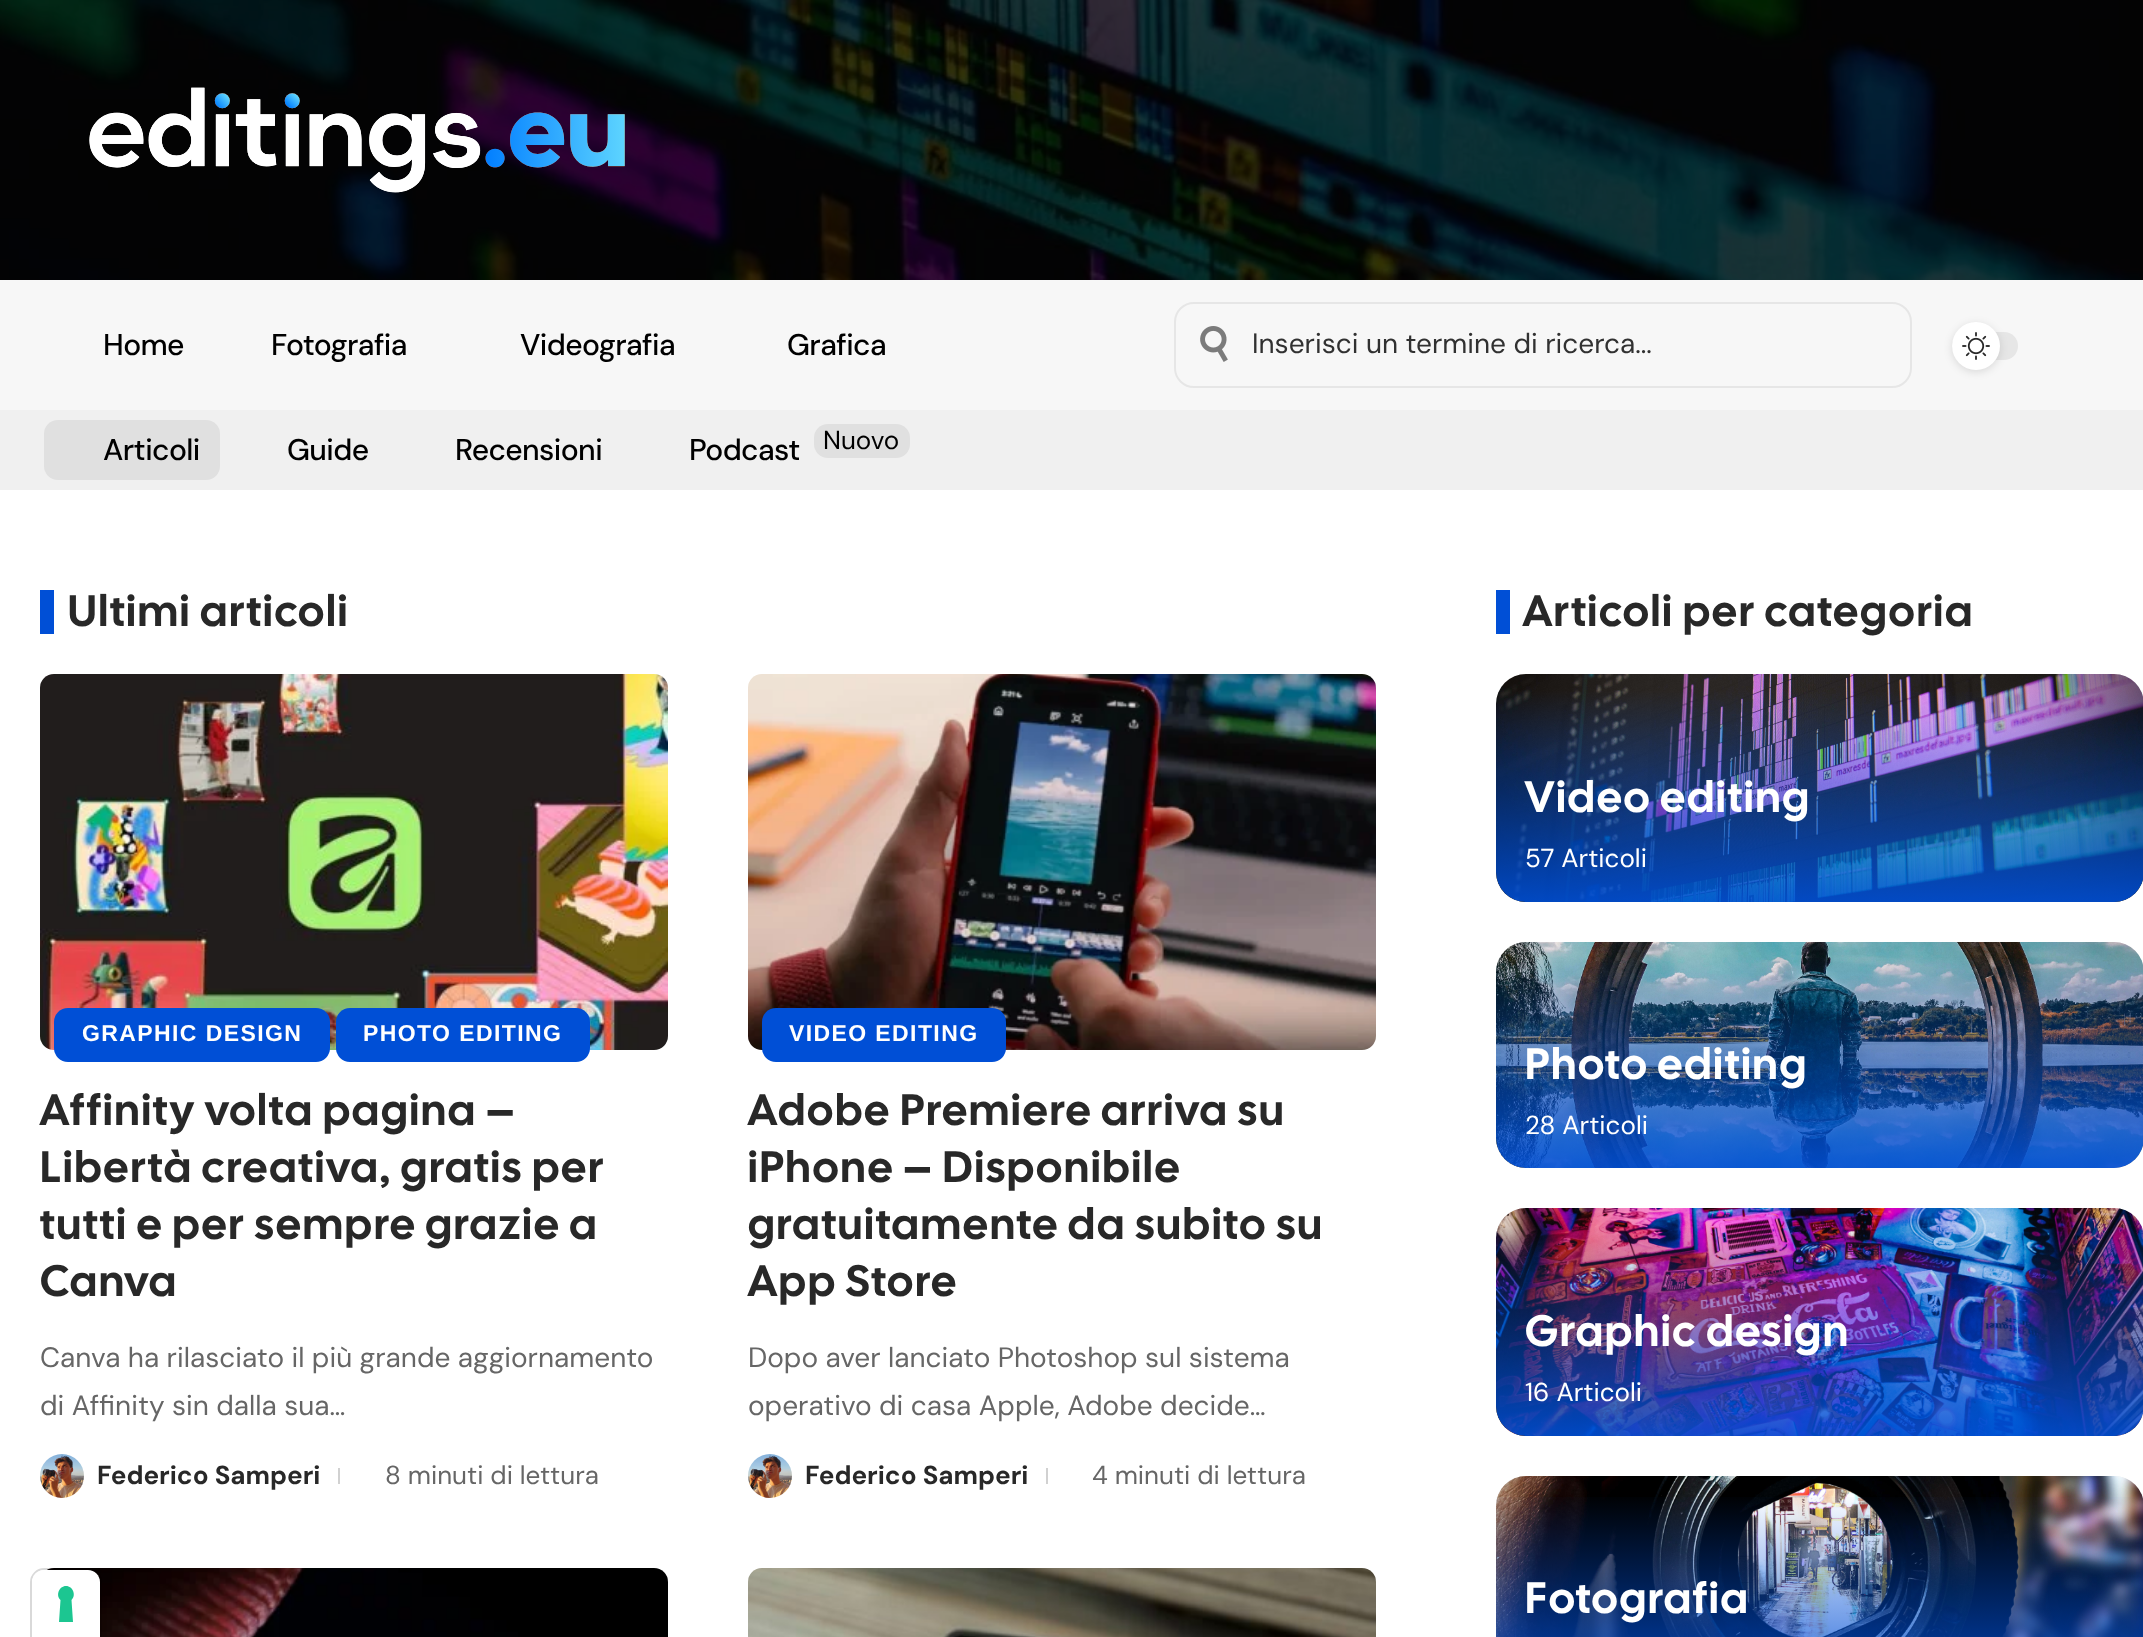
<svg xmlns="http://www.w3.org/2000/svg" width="2143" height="1637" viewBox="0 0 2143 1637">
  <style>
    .t1 { font: 500 30px DM Sans; letter-spacing: -0.6px; fill: #000; }
    .t2 { font: 28px DM Sans; fill: #313131; }
    .t3 { font: 26px DM Sans; fill: #000; }
    .t4 { font: 44px Cal Sans; letter-spacing: 2px; fill: #282828; }
    .t5 { font: bold 23px Liberation Sans; letter-spacing: 1.4px; fill: #fff; }
    .t6 { font: 28px DM Sans; fill: #666; }
    .t7 { font: bold 26px DM Sans; fill: #282828; }
    .t8 { font: 26px DM Sans; fill: #666; }
    .t9 { font: 44px Cal Sans; letter-spacing: 2px; fill: #fff; }
    .t10 { font: 26px DM Sans; fill: #fff; }
  </style>
  <defs>
    <clipPath id="clip1"><rect x="1496" y="674" width="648" height="228" rx="30"/></clipPath>
    <linearGradient id="g1" gradientUnits="userSpaceOnUse" x1="1820" y1="690" x2="1820" y2="902"><stop offset="0" stop-color="#004fd6" stop-opacity="0"/><stop offset="1" stop-color="#004fd6" stop-opacity="0.9"/></linearGradient>
    <clipPath id="clip2"><rect x="1496" y="942" width="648" height="226" rx="30"/></clipPath>
    <linearGradient id="g2" gradientUnits="userSpaceOnUse" x1="1820" y1="956" x2="1820" y2="1168"><stop offset="0" stop-color="#004fd6" stop-opacity="0"/><stop offset="1" stop-color="#004fd6" stop-opacity="0.9"/></linearGradient>
    <clipPath id="clip3"><rect x="1496" y="1208" width="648" height="228" rx="30"/></clipPath>
    <linearGradient id="g3" gradientUnits="userSpaceOnUse" x1="1820" y1="1224" x2="1820" y2="1436"><stop offset="0" stop-color="#004fd6" stop-opacity="0"/><stop offset="1" stop-color="#004fd6" stop-opacity="0.9"/></linearGradient>
    <linearGradient id="g4" gradientUnits="userSpaceOnUse" x1="1820" y1="1492" x2="1820" y2="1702"><stop offset="0" stop-color="#004fd6" stop-opacity="0"/><stop offset="1" stop-color="#004fd6" stop-opacity="0.9"/></linearGradient>
  </defs>
  <rect width="100%" height="100%" fill="#fff"/>
  <image x="0" y="0" width="2143" height="280" href="images/1.png"/>
  <image x="89" y="87" width="536" height="106" href="images/2.png"/>
  <rect x="0" y="280" width="2143" height="130" fill="#f7f7f7"/>
  <text x="103" y="355" class="t1">Home</text>
  <text x="271" y="355" class="t1">Fotografia</text>
  <text x="520" y="355" class="t1">Videografia</text>
  <text x="787" y="355" class="t1">Grafica</text>
  <rect x="1175" y="303" width="736" height="84" rx="19" fill="none" stroke="#e6e6e6" stroke-width="2"/>
  <image x="1200" y="326" width="28" height="36" href="images/3.png"/>
  <text x="1252" y="353" class="t2">Inserisci un termine di ricerca...</text>
  <rect x="1952" y="332" width="66" height="28" rx="14" fill="#e6e6e6"/>
  <rect x="1952" y="324" width="48" height="48" rx="24" fill="#0000001f" filter="blur(4px)"/>
  <circle cx="1976" cy="346" r="24" fill="#fff"/>
  <image x="1962" y="332" width="28" height="28" href="images/4.png"/>
  <rect x="0" y="410" width="2143" height="80" fill="#f0f0f0"/>
  <rect x="44" y="420" width="176" height="60" rx="14" fill="#e0e0e0"/>
  <text x="103" y="460" class="t1">Articoli</text>
  <text x="287" y="460" class="t1">Guide</text>
  <text x="455" y="460" class="t1">Recensioni</text>
  <text x="689" y="460" class="t1">Podcast</text>
  <rect x="814" y="424" width="96" height="34" rx="14" fill="#e0e0e0"/>
  <text x="823" y="449" class="t3">Nuovo</text>
  <rect x="40" y="590" width="14" height="44" fill="#004fd6"/>
  <text x="68" y="626" class="t4">Ultimi articoli</text>
  <image x="40" y="674" width="628" height="376" href="images/5.png"/>
  <rect x="54" y="1008" width="276" height="54" rx="14" fill="#004fd6"/>
  <text x="82" y="1041" class="t5">GRAPHIC DESIGN</text>
  <rect x="336" y="1008" width="254" height="54" rx="14" fill="#004fd6"/>
  <text x="363" y="1041" class="t5">PHOTO EDITING</text>
  <text x="40" y="1125" class="t4">Affinity volta pagina –</text>
  <text x="40" y="1182" class="t4">Libertà creativa, gratis per</text>
  <text x="40" y="1239" class="t4">tutti e per sempre grazie a</text>
  <text x="40" y="1296" class="t4">Canva</text>
  <text x="40" y="1367" class="t6">Canva ha rilasciato il più grande aggiornamento</text>
  <text x="40" y="1415" class="t6">di Affinity sin dalla sua…</text>
  <image x="40" y="1454" width="44" height="44" href="images/6.png"/>
  <text x="97" y="1484" class="t7">Federico Samperi</text>
  <rect x="338" y="1468" width="2" height="16" fill="#d1d1d1"/>
  <text x="385" y="1484" class="t8">8 minuti di lettura</text>
  <image x="748" y="674" width="628" height="376" href="images/7.png"/>
  <rect x="762" y="1008" width="244" height="54" rx="14" fill="#004fd6"/>
  <text x="789" y="1041" class="t5">VIDEO EDITING</text>
  <text x="748" y="1125" class="t4">Adobe Premiere arriva su</text>
  <text x="748" y="1182" class="t4">iPhone – Disponibile</text>
  <text x="748" y="1239" class="t4">gratuitamente da subito su</text>
  <text x="748" y="1296" class="t4">App Store</text>
  <text x="748" y="1367" class="t6">Dopo aver lanciato Photoshop sul sistema</text>
  <text x="748" y="1415" class="t6">operativo di casa Apple, Adobe decide…</text>
  <image x="748" y="1454" width="44" height="44" href="images/8.png"/>
  <text x="805" y="1484" class="t7">Federico Samperi</text>
  <rect x="1046" y="1468" width="2" height="16" fill="#d1d1d1"/>
  <text x="1092" y="1484" class="t8">4 minuti di lettura</text>
  <image x="47" y="1568" width="621" height="69" href="images/9.png"/>
  <image x="748" y="1568" width="628" height="69" href="images/10.png"/>
  <rect x="1496" y="590" width="14" height="44" fill="#004fd6"/>
  <text x="1523" y="626" class="t4">Articoli per categoria</text>
  <rect x="1496" y="674" width="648" height="228" rx="30" fill="#f7f7f7"/>
  <rect x="1496" y="674" width="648" height="228" rx="30" fill="#88888812"/>
  <image x="1496" y="674" width="647" height="228" href="images/11.png"/>
  <g clip-path="url(#clip1)">
    <path d="M1496 690H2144V872C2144 888.5 2130.5 902 2114 902H1526C1509.5 902 1496 888.5 1496 872Z" fill="url(#g1)"/>
  </g>
  <text x="1525" y="812" class="t9">Video editing</text>
  <text x="1525" y="867" class="t10">57 Articoli</text>
  <rect x="1496" y="942" width="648" height="226" rx="30" fill="#f7f7f7"/>
  <rect x="1496" y="942" width="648" height="226" rx="30" fill="#88888812"/>
  <image x="1496" y="942" width="647" height="226" href="images/12.png"/>
  <g clip-path="url(#clip2)">
    <path d="M1496 956H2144V1138C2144 1154.5 2130.5 1168 2114 1168H1526C1509.5 1168 1496 1154.5 1496 1138Z" fill="url(#g2)"/>
  </g>
  <text x="1525" y="1079" class="t9">Photo editing</text>
  <text x="1525" y="1134" class="t10">28 Articoli</text>
  <rect x="1496" y="1208" width="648" height="228" rx="30" fill="#f7f7f7"/>
  <rect x="1496" y="1208" width="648" height="228" rx="30" fill="#88888812"/>
  <image x="1496" y="1208" width="647" height="228" href="images/13.png"/>
  <g clip-path="url(#clip3)">
    <path d="M1496 1224H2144V1406C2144 1422.5 2130.5 1436 2114 1436H1526C1509.5 1436 1496 1422.5 1496 1406Z" fill="url(#g3)"/>
  </g>
  <text x="1525" y="1346" class="t9">Graphic design</text>
  <text x="1525" y="1401" class="t10">16 Articoli</text>
  <rect x="1496" y="1476" width="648" height="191" rx="30" fill="#f7f7f7"/>
  <rect x="1496" y="1476" width="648" height="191" rx="30" fill="#88888812"/>
  <image x="1496" y="1476" width="647" height="161" href="images/14.png"/>
  <rect x="1496" y="1497" width="647" height="140" fill="url(#g4)"/>
  <text x="1525" y="1613" class="t9">Fotografia</text>
  <path d="M44 1569H88C95 1569 101 1575 101 1582V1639H31V1582C31 1575 37 1569 44 1569Z" fill="none" stroke="#00000026" stroke-width="2"/>
  <path d="M44 1570H88C94.5 1570 100 1575.5 100 1582V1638H32V1582C32 1575.5 37.5 1570 44 1570Z" fill="#fff"/>
  <path d="M66 1586C73 1586 76.5 1595.5 71.5 1600L73 1622H59L60.5 1600C55.5 1595.5 59 1586 66 1586Z" fill="#1cc691" fill-rule="evenodd"/>
</svg>
